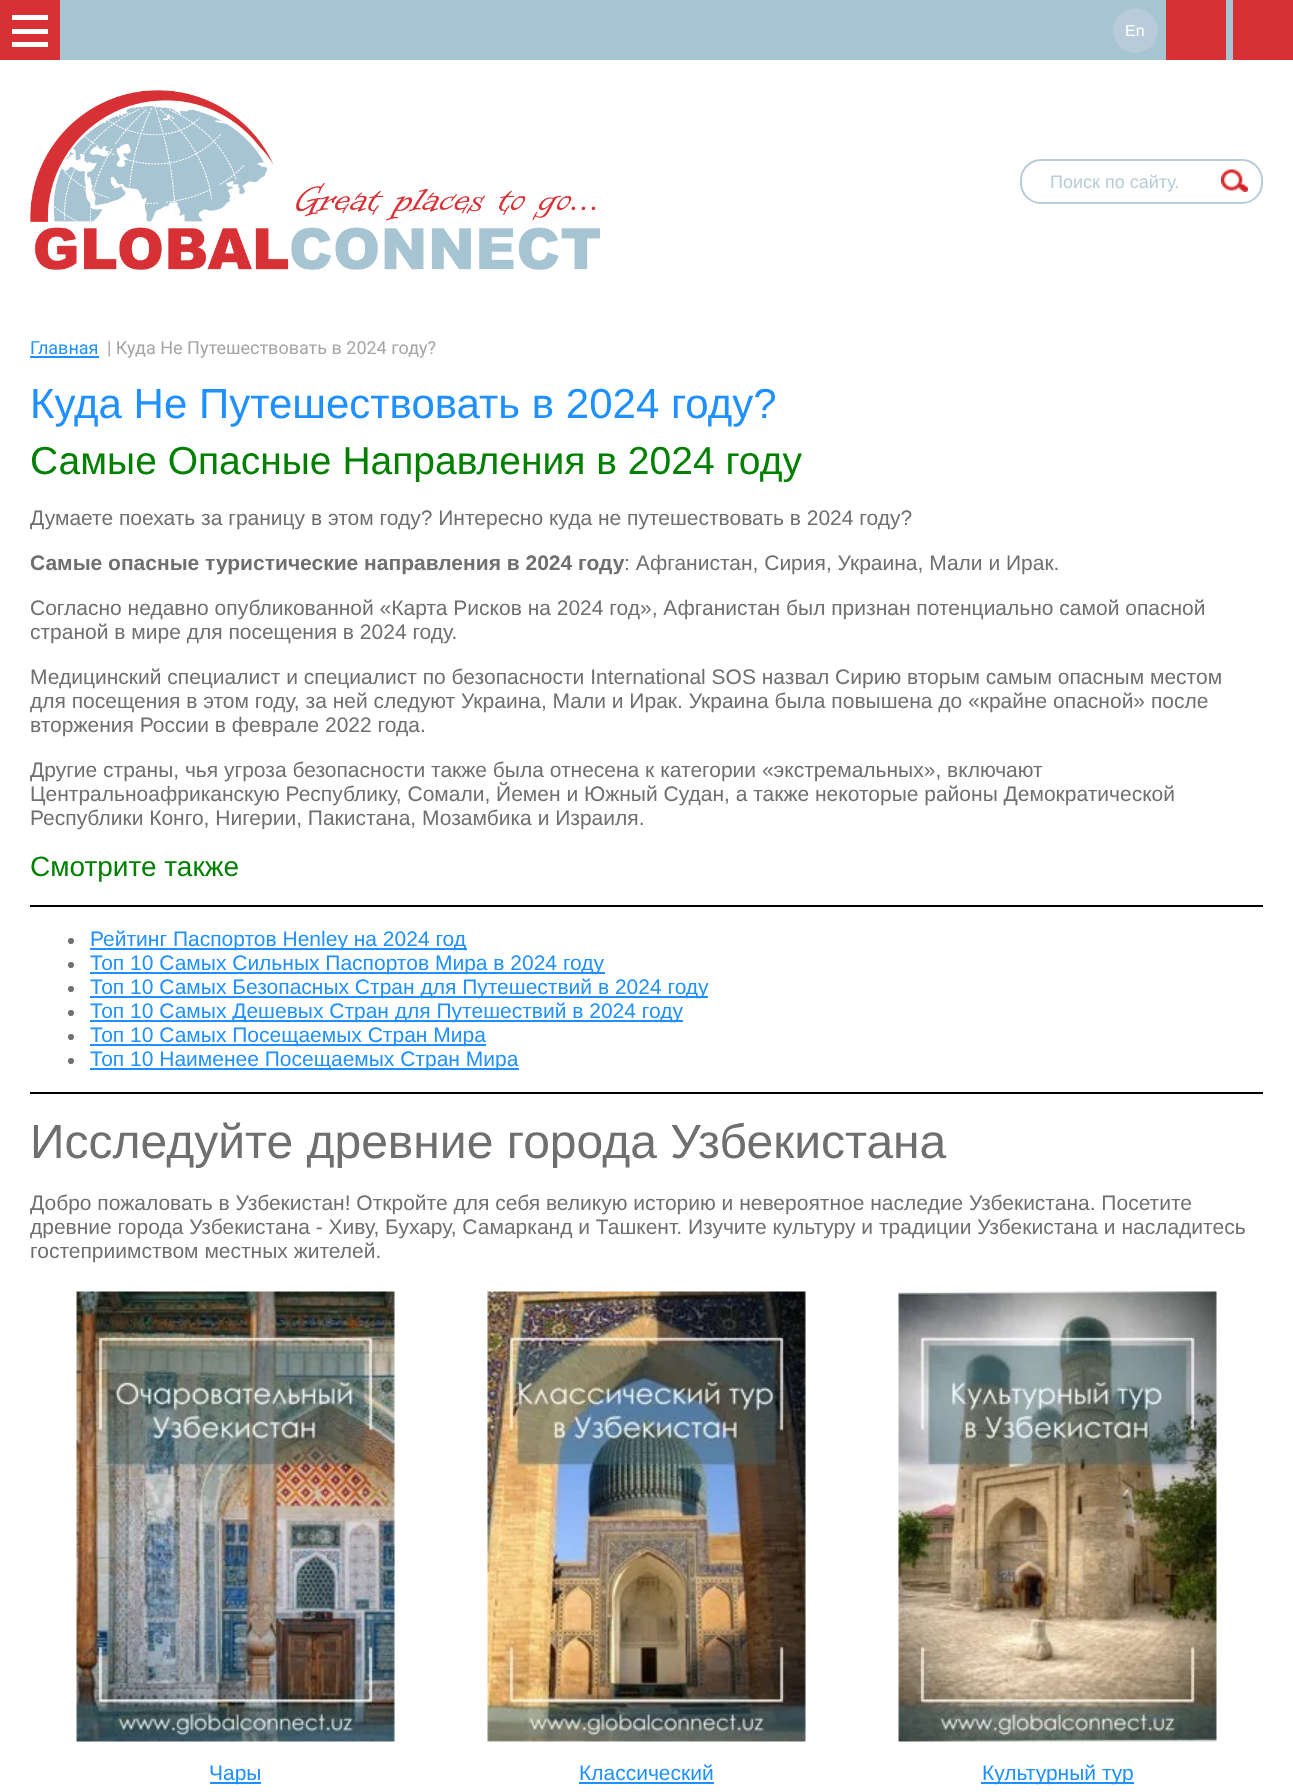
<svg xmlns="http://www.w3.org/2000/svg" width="1293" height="1792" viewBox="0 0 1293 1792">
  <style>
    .t1 { font: 16px Liberation Sans; fill: #fff; }
    .t2 { font: 18px Liberation Sans; fill: #b7cbd8; }
    .t3 { font: 18px Roboto; fill: #1e90ff; }
    .t4 { font: 18px Roboto; fill: #a5a5a5; }
    .t5 { font: 42px Liberation Sans; fill: #1e90ff; }
    .t6 { font: 39px Liberation Sans; fill: #008000; }
    .t7 { font: 21px Liberation Sans; fill: #6f6f6f; }
    .t8 { font: bold 21px Liberation Sans; fill: #6f6f6f; }
    .t9 { font: 28px Liberation Sans; fill: #008000; }
    .t10 { font: 21px Liberation Sans; fill: #1e90ff; }
    .t11 { font: 48px Liberation Sans; fill: #6f6f6f; }
  </style>
  <rect width="100%" height="100%" fill="#fff"/>
  <rect x="0" y="0" width="60" height="60" fill="#d83135"/>
  <rect x="12" y="15" width="36" height="5" fill="#fff"/>
  <rect x="12" y="42" width="36" height="5" fill="#fff"/>
  <rect x="12" y="29" width="36" height="5" fill="#fff"/>
  <rect x="60" y="0" width="1173" height="60" fill="#a7c4d2"/>
  <circle cx="1135.5" cy="30.5" r="22.5" fill="#b7cbd8"/>
  <text x="1125" y="36" class="t1">En</text>
  <image x="30" y="90" width="570" height="180" href="images/1.png"/>
  <rect x="1021" y="160" width="241" height="43" rx="20" fill="none" stroke="#b7cbd8" stroke-width="2"/>
  <text x="1050" y="188" class="t2">Поиск по сайту.</text>
  <image x="1221" y="169" width="27" height="23" href="images/2.png"/>
  <rect x="1166" y="0" width="60" height="60" fill="#d83135"/>
  <rect x="1233" y="0" width="60" height="60" fill="#d83135"/>
  <text x="30" y="354" class="t3">Главная</text>
  <rect x="30" y="356" width="69" height="2" fill="#1e90ff"/>
  <text x="107" y="354" class="t4">| Куда Не Путешествовать в 2024 году?</text>
  <text x="30" y="418" class="t5">Куда Не Путешествовать в 2024 году?</text>
  <text x="30" y="474" class="t6">Самые Опасные Направления в 2024 году</text>
  <text x="30" y="525" class="t7">Думаете поехать за границу в этом году? Интересно куда не путешествовать в 2024 году?</text>
  <text x="30" y="570" class="t8">Самые опасные туристические направления в 2024 году</text>
  <text x="624" y="570" class="t7">: Афганистан, Сирия, Украина, Мали и Ирак.</text>
  <text x="30" y="615" class="t7">Согласно недавно опубликованной «Карта Рисков на 2024 год», Афганистан был признан потенциально самой опасной</text>
  <text x="30" y="639" class="t7">страной в мире для посещения в 2024 году.</text>
  <text x="30" y="684" class="t7">Медицинский специалист и специалист по безопасности International SOS назвал Сирию вторым самым опасным местом</text>
  <text x="30" y="708" class="t7">для посещения в этом году, за ней следуют Украина, Мали и Ирак. Украина была повышена до «крайне опасной» после</text>
  <text x="30" y="732" class="t7">вторжения России в феврале 2022 года.</text>
  <text x="30" y="777" class="t7">Другие страны, чья угроза безопасности также была отнесена к категории «экстремальных», включают</text>
  <text x="30" y="801" class="t7">Центральноафриканскую Республику, Сомали, Йемен и Южный Судан, а также некоторые районы Демократической</text>
  <text x="30" y="825" class="t7">Республики Конго, Нигерии, Пакистана, Мозамбика и Израиля.</text>
  <text x="30" y="876" class="t9">Смотрите также</text>
  <rect x="30" y="905" width="1233" height="2" fill="#000"/>
  <circle cx="71" cy="941" r="3" fill="#6f6f6f"/>
  <rect x="90" y="948" width="377" height="2" fill="#1e90ff"/>
  <text x="90" y="946" class="t10">Рейтинг Паспортов Henley на 2024 год</text>
  <circle cx="71" cy="965" r="3" fill="#6f6f6f"/>
  <rect x="90" y="972" width="515" height="2" fill="#1e90ff"/>
  <text x="90" y="970" class="t10">Топ 10 Самых Сильных Паспортов Мира в 2024 году</text>
  <circle cx="71" cy="989" r="3" fill="#6f6f6f"/>
  <rect x="90" y="996" width="618" height="2" fill="#1e90ff"/>
  <text x="90" y="994" class="t10">Топ 10 Самых Безопасных Стран для Путешествий в 2024 году</text>
  <circle cx="71" cy="1013" r="3" fill="#6f6f6f"/>
  <rect x="90" y="1020" width="593" height="2" fill="#1e90ff"/>
  <text x="90" y="1018" class="t10">Топ 10 Самых Дешевых Стран для Путешествий в 2024 году</text>
  <circle cx="71" cy="1037" r="3" fill="#6f6f6f"/>
  <rect x="90" y="1044" width="396" height="2" fill="#1e90ff"/>
  <text x="90" y="1042" class="t10">Топ 10 Самых Посещаемых Стран Мира</text>
  <circle cx="71" cy="1061" r="3" fill="#6f6f6f"/>
  <rect x="90" y="1068" width="429" height="2" fill="#1e90ff"/>
  <text x="90" y="1066" class="t10">Топ 10 Наименее Посещаемых Стран Мира</text>
  <rect x="30" y="1092" width="1233" height="2" fill="#000"/>
  <text x="30" y="1158" class="t11">Исследуйте древние города Узбекистана</text>
  <text x="30" y="1210" class="t7">Добро пожаловать в Узбекистан! Откройте для себя великую историю и невероятное наследие Узбекистана. Посетите</text>
  <text x="30" y="1234" class="t7">древние города Узбекистана - Хиву, Бухару, Самарканд и Ташкент. Изучите культуру и традиции Узбекистана и насладитесь</text>
  <text x="30" y="1258" class="t7">гостеприимством местных жителей.</text>
  <image x="76" y="1291" width="319" height="451" href="images/3.png"/>
  <image x="487" y="1291" width="319" height="451" href="images/4.png"/>
  <image x="898" y="1291" width="319" height="451" href="images/5.png"/>
  <rect x="210" y="1782" width="51" height="2" fill="#1e90ff"/>
  <text x="209" y="1780" class="t10">Чары</text>
  <text x="579" y="1780" class="t10">Классический</text>
  <rect x="579" y="1782" width="135" height="2" fill="#1e90ff"/>
  <rect x="981" y="1782" width="153" height="2" fill="#1e90ff"/>
  <text x="982" y="1780" class="t10">Культурный тур</text>
</svg>
